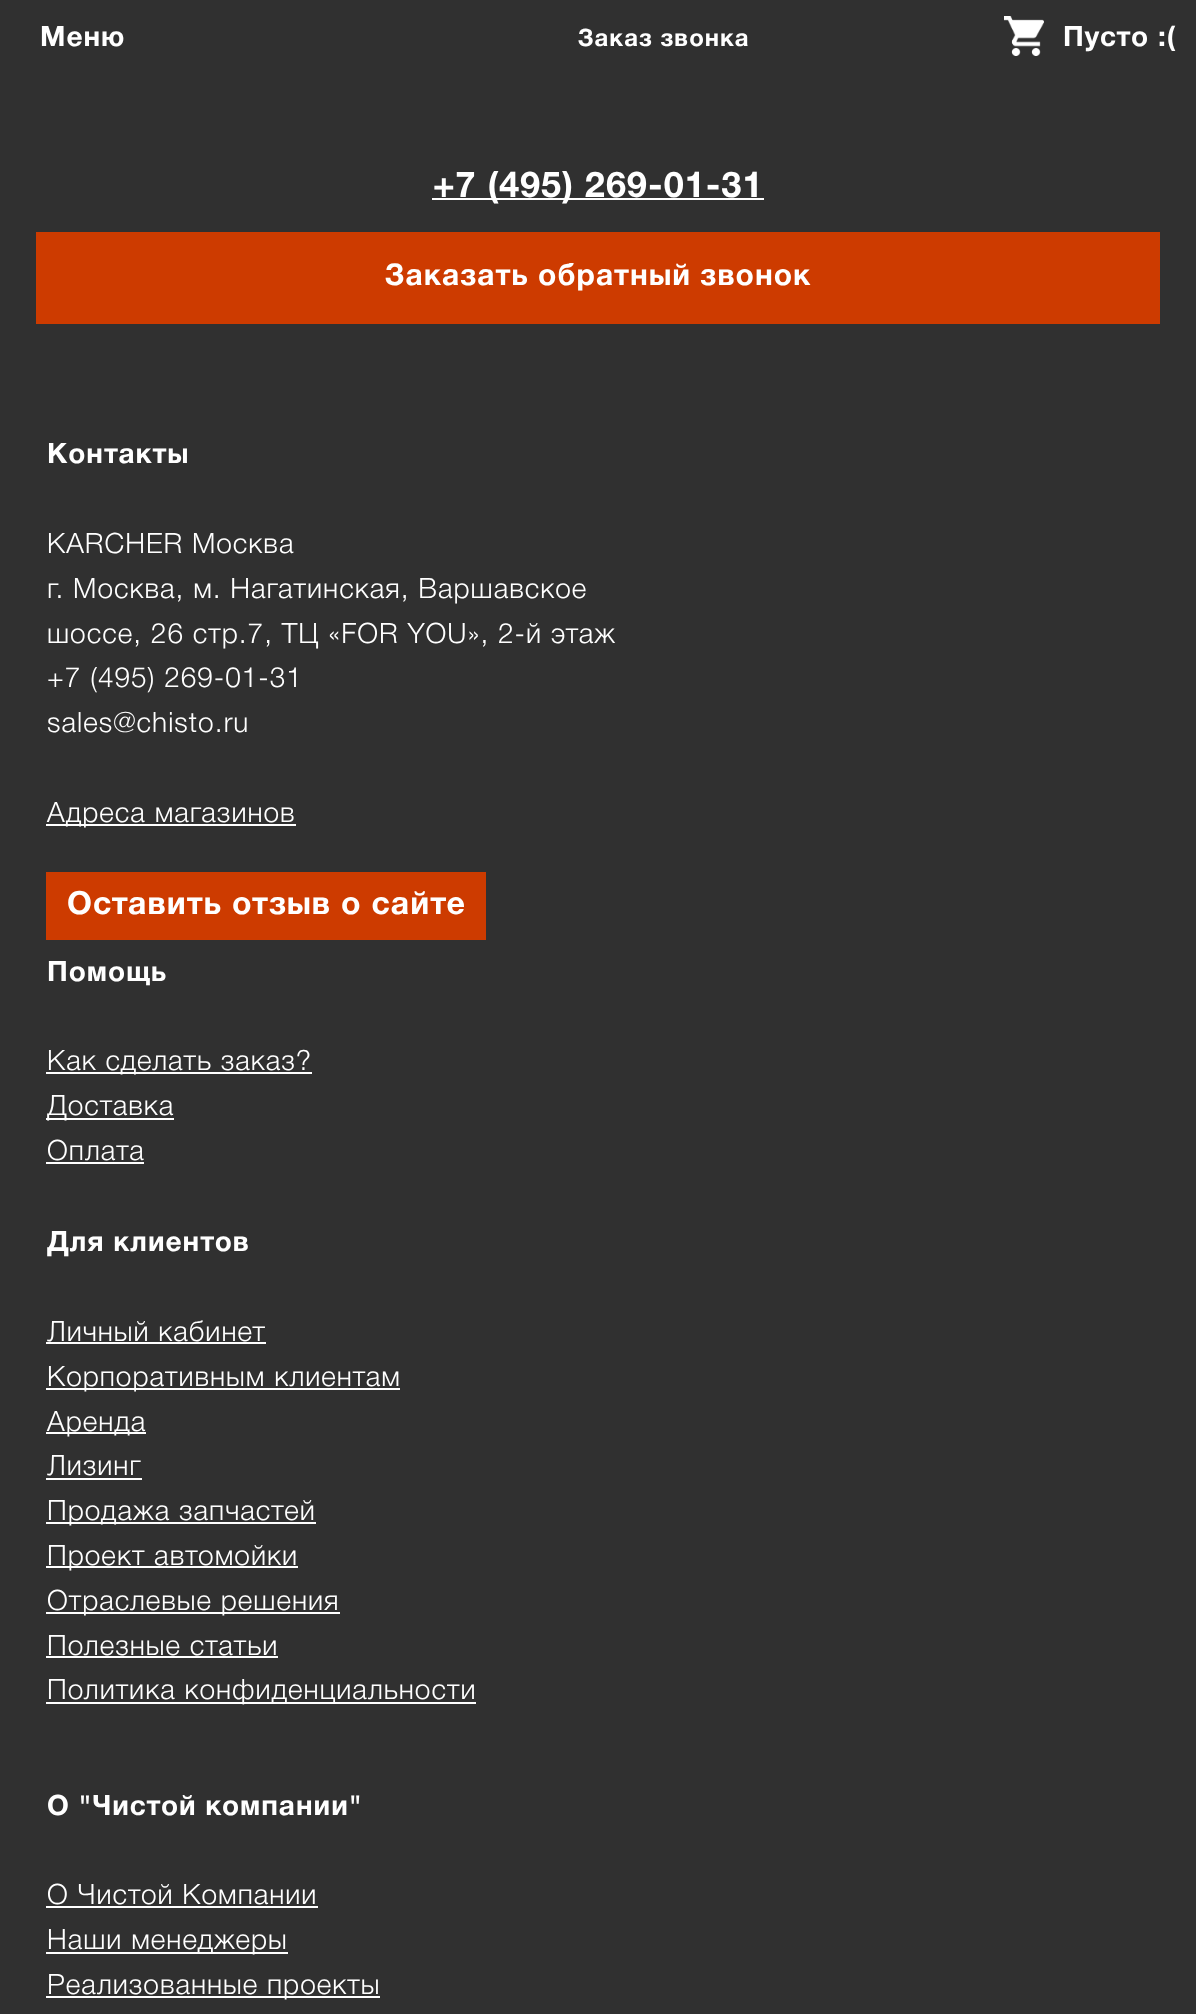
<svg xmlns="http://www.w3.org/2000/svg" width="1196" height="2014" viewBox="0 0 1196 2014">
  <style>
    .t1 { font: bold 28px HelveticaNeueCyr; letter-spacing: 1px; fill: #fff; }
    .t2 { font: bold 24px HelveticaNeueCyr; letter-spacing: 1px; fill: #fff; }
    .t3 { font: bold 36px HelveticaNeueCyr; letter-spacing: 1px; fill: #fff; }
    .t4 { font: bold 30px HelveticaNeueCyr; letter-spacing: 1px; fill: #fff; }
    .t5 { font: 300 28px HelveticaNeueCyr; letter-spacing: 1px; fill: #fff; }
    .t6 { font: bold 32px HelveticaNeueCyr; letter-spacing: 1px; fill: #fff; }
  </style>
  <rect width="100%" height="100%" fill="#303030"/>
  <text x="40" y="46" class="t1">Меню</text>
  <text x="578" y="46" class="t2">Заказ звонка</text>
  <image x="1004" y="16" width="40" height="40" href="images/1.png"/>
  <text x="1063" y="46" class="t1">Пусто :(</text>
  <rect x="432" y="198" width="332" height="2" fill="#fff"/>
  <text x="433" y="197" class="t3">+7 (495) 269-01-31</text>
  <rect x="36" y="232" width="1124" height="92" fill="#cd3b00"/>
  <text x="385" y="285" class="t4">Заказать обратный звонок</text>
  <text x="47" y="463" class="t1">Контакты</text>
  <text x="47" y="553" class="t5">KARCHER Москва</text>
  <text x="47" y="598" class="t5">г. Москва, м. Нагатинская, Варшавское</text>
  <text x="47" y="643" class="t5">шоссе, 26 стр.7, ТЦ «FOR YOU», 2-й этаж</text>
  <text x="47" y="687" class="t5">+7 (495) 269-01-31</text>
  <text x="47" y="732" class="t5">sales@chisto.ru</text>
  <rect x="46" y="824" width="250" height="2" fill="#fff"/>
  <text x="47" y="822" class="t5">Адреса магазинов</text>
  <rect x="46" y="872" width="440" height="68" fill="#cd3b00"/>
  <text x="67" y="914" class="t6">Оставить отзыв о сайте</text>
  <text x="47" y="981" class="t1">Помощь</text>
  <rect x="46" y="1072" width="266" height="2" fill="#fff"/>
  <text x="47" y="1070" class="t5">Как сделать заказ?</text>
  <rect x="46" y="1118" width="128" height="2" fill="#fff"/>
  <text x="47" y="1115" class="t5">Доставка</text>
  <text x="47" y="1160" class="t5">Оплата</text>
  <rect x="46" y="1162" width="98" height="2" fill="#fff"/>
  <text x="47" y="1251" class="t1">Для клиентов</text>
  <text x="47" y="1341" class="t5">Личный кабинет</text>
  <rect x="46" y="1342" width="220" height="2" fill="#fff"/>
  <rect x="46" y="1388" width="354" height="2" fill="#fff"/>
  <text x="47" y="1386" class="t5">Корпоративным клиентам</text>
  <rect x="46" y="1432" width="100" height="2" fill="#fff"/>
  <text x="47" y="1431" class="t5">Аренда</text>
  <text x="47" y="1475" class="t5">Лизинг</text>
  <rect x="46" y="1478" width="96" height="2" fill="#fff"/>
  <rect x="46" y="1522" width="270" height="2" fill="#fff"/>
  <text x="47" y="1520" class="t5">Продажа запчастей</text>
  <rect x="46" y="1566" width="252" height="2" fill="#fff"/>
  <text x="47" y="1565" class="t5">Проект автомойки</text>
  <rect x="46" y="1612" width="294" height="2" fill="#fff"/>
  <text x="47" y="1610" class="t5">Отраслевые решения</text>
  <text x="47" y="1655" class="t5">Полезные статьи</text>
  <rect x="46" y="1656" width="232" height="2" fill="#fff"/>
  <rect x="46" y="1702" width="430" height="2" fill="#fff"/>
  <text x="47" y="1699" class="t5">Политика конфиденциальности</text>
  <text x="47" y="1815" class="t1">О "Чистой компании"</text>
  <text x="47" y="1904" class="t5">О Чистой Компании</text>
  <rect x="46" y="1906" width="272" height="2" fill="#fff"/>
  <rect x="46" y="1952" width="242" height="2" fill="#fff"/>
  <text x="47" y="1949" class="t5">Наши менеджеры</text>
  <rect x="46" y="1996" width="334" height="2" fill="#fff"/>
  <text x="47" y="1994" class="t5">Реализованные проекты</text>
</svg>
